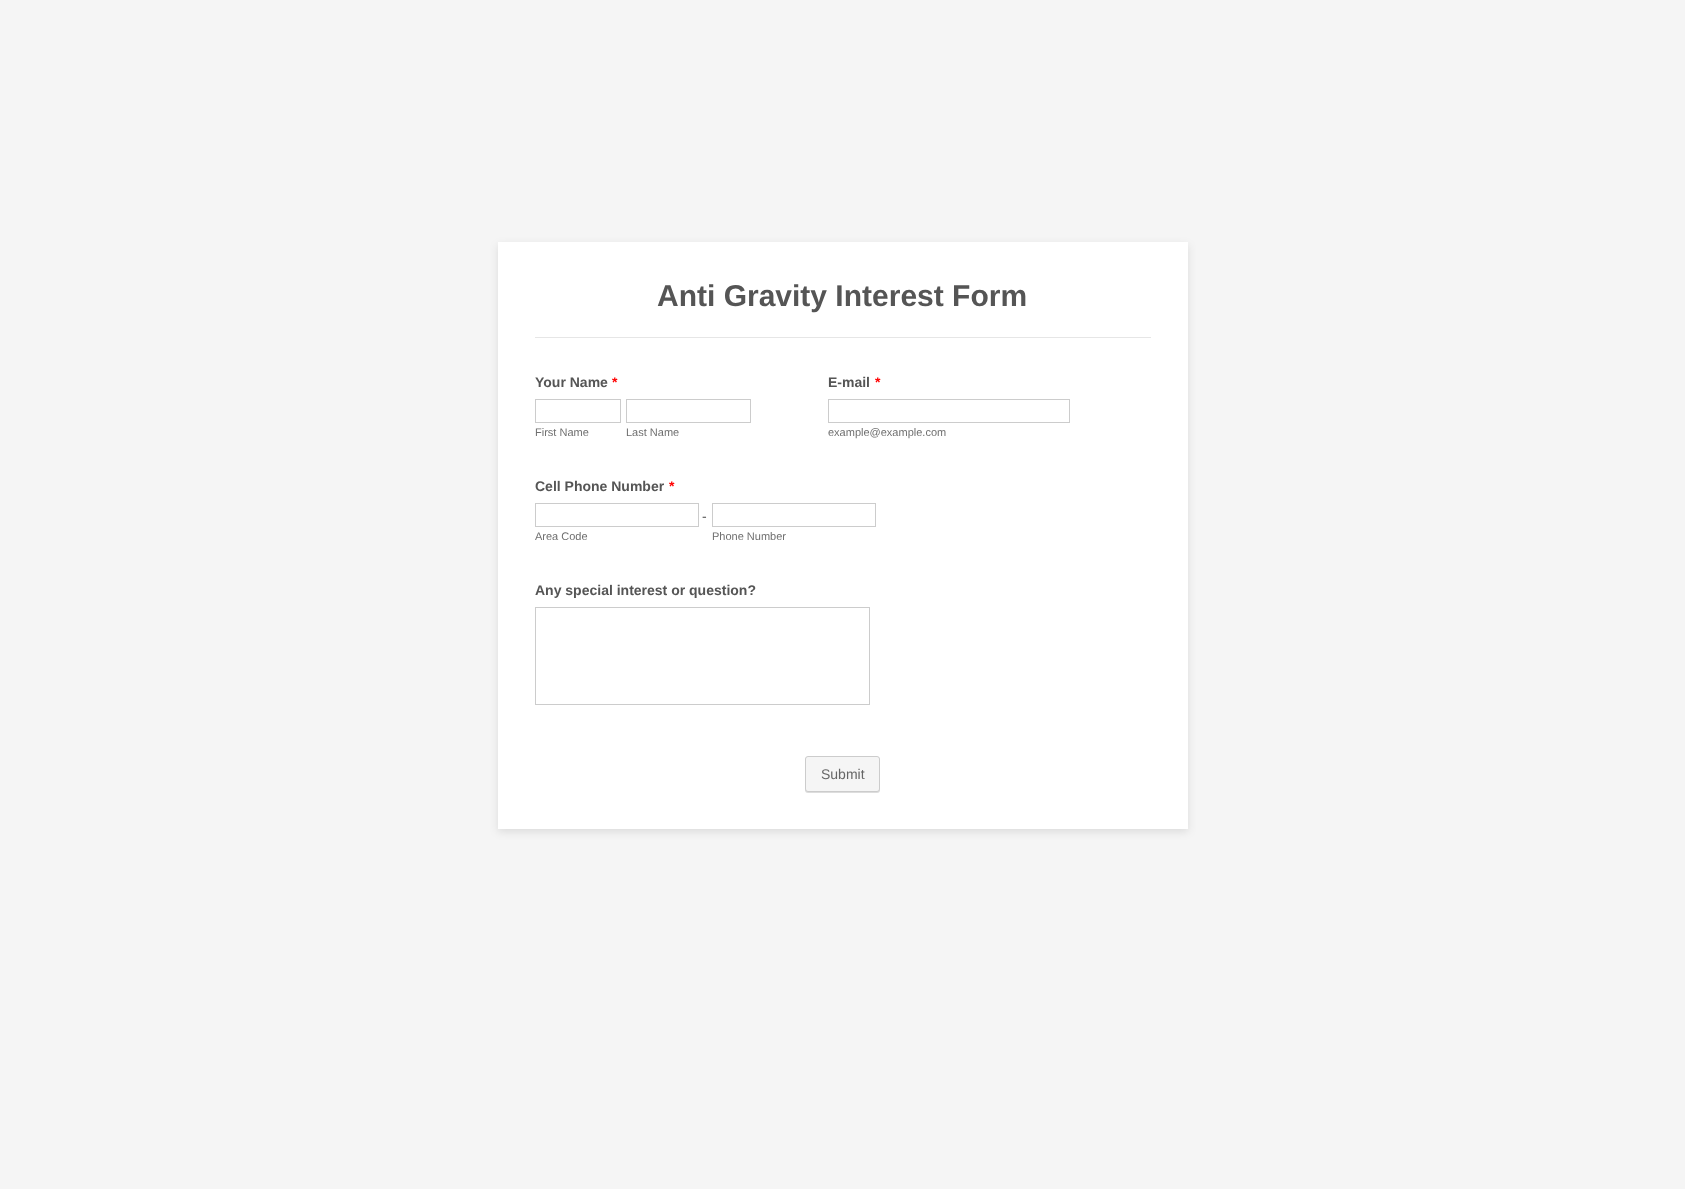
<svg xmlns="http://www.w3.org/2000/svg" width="1685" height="1189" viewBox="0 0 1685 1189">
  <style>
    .t1 { font: bold 30px Liberation Sans; fill: #555; }
    .t2 { font: bold 14px Liberation Sans; fill: #555; }
    .t3 { font: bold 14px Liberation Sans; fill: #f00; }
    .t4 { font: 11px Liberation Sans; fill: #6f6f6f; }
    .t5 { font: 14px Liberation Sans; fill: #555; }
    .t6 { font: 14px Liberation Sans; fill: #666; }
  </style>
  <rect width="100%" height="100%" fill="#f5f5f5"/>
  <rect x="498" y="245" width="690" height="587" fill="#0000001a" filter="blur(4.5px)"/>
  <rect x="498" y="242" width="690" height="587" fill="#fff"/>
  <rect x="535" y="337" width="616" height="1" fill="#e6e6e6"/>
  <text x="657" y="306" class="t1">Anti Gravity Interest Form</text>
  <text x="535" y="387" class="t2">Your Name</text>
  <text x="612" y="387" class="t3">*</text>
  <rect x="535.5" y="399.5" width="85" height="23" fill="none" stroke="#ccc"/>
  <text x="535" y="436" class="t4">First Name</text>
  <rect x="626.5" y="399.5" width="124" height="23" fill="none" stroke="#ccc"/>
  <text x="626" y="436" class="t4">Last Name</text>
  <text x="828" y="387" class="t2">E-mail</text>
  <text x="875" y="387" class="t3">*</text>
  <rect x="828.5" y="399.5" width="241" height="23" fill="none" stroke="#ccc"/>
  <text x="828" y="436" class="t4">example@example.com</text>
  <text x="535" y="491" class="t2">Cell Phone Number</text>
  <text x="669" y="491" class="t3">*</text>
  <rect x="535.5" y="503.5" width="163" height="23" fill="none" stroke="#ccc"/>
  <text x="702" y="521" class="t5">-</text>
  <text x="535" y="540" class="t4">Area Code</text>
  <rect x="712.5" y="503.5" width="163" height="23" fill="none" stroke="#ccc"/>
  <text x="712" y="540" class="t4">Phone Number</text>
  <text x="535" y="595" class="t2">Any special interest or question?</text>
  <rect x="535.5" y="607.5" width="334" height="97" fill="none" stroke="#ccc"/>
  <rect x="805" y="757" width="75" height="36" rx="3" fill="#ddd" filter="blur(0.5px)"/>
  <rect x="805.5" y="756.5" width="74" height="35" rx="2.5" fill="#f5f5f5" stroke="#ccc"/>
  <text x="821" y="779" class="t6">Submit</text>
</svg>
